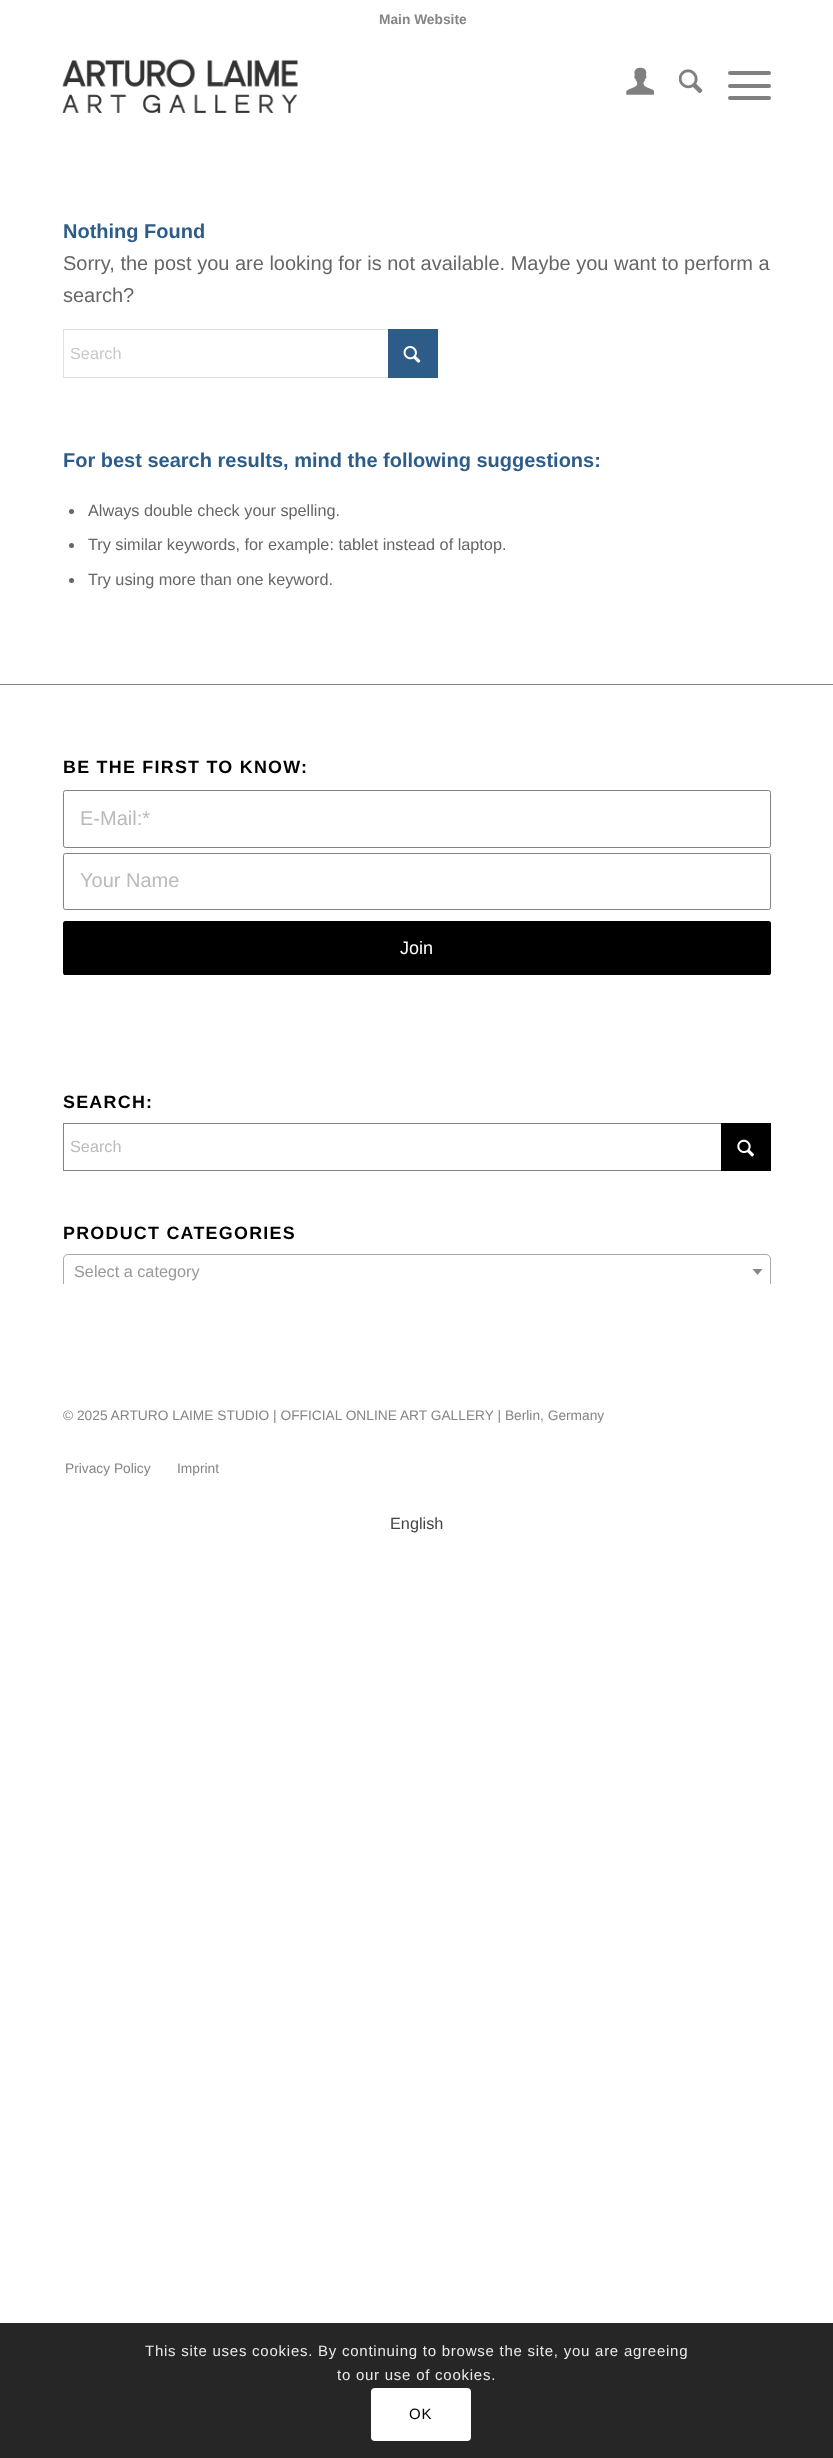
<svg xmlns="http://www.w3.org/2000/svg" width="833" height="2458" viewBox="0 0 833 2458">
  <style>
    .t1 { font: bold 13.75px Liberation Sans; fill: #858585; }
    .t2 { font: bold 20px Liberation Sans; fill: #2d5c88; }
    .t3 { font: 20px Liberation Sans; fill: #666; }
    .t4 { font: 16.25px Liberation Sans; fill: #c8c8c8; }
    .t5 { font: 16.25px Liberation Sans; fill: #666; }
    .t6 { font: bold 17.9px Liberation Sans; letter-spacing: 1.25px; fill: #000; }
    .t7 { font: 20px Liberation Sans; fill: #bababa; }
    .t8 { font: 18px Liberation Sans; fill: #fff; }
    .t9 { font: 16.25px Liberation Sans; fill: #bababa; }
    .t10 { font: 16.25px Liberation Sans; fill: #999; }
    .t11 { font: 13.75px Liberation Sans; fill: #858585; }
    .t12 { font: 16.25px Liberation Sans; fill: #444; }
    .t13 { font: 15px Liberation Sans; letter-spacing: 0.75px; fill: #e9e9e9; }
    .t14 { font: 15px Liberation Sans; letter-spacing: 0.75px; fill: #000; }
  </style>
  <defs>
    <clipPath id="clip1"><rect x="63" y="1209" width="708" height="75"/></clipPath>
  </defs>
  <rect width="100%" height="100%" fill="#fff"/>
  <text x="379" y="24" class="t1">Main Website</text>
  <image x="62" y="59" width="236" height="54" href="images/1.png"/>
  <image x="626" y="67" width="28" height="28" href="images/2.png"/>
  <image x="679" y="69" width="24" height="25" href="images/3.png"/>
  <rect x="728" y="84" width="43" height="4" rx="2" fill="#808080"/>
  <rect x="728" y="71" width="43" height="4" rx="2" fill="#808080"/>
  <rect x="728" y="96" width="43" height="4" rx="2" fill="#808080"/>
  <text x="63" y="238" class="t2">Nothing Found</text>
  <text x="63" y="270" class="t3">Sorry, the post you are looking for is not available. Maybe you want to perform a</text>
  <text x="63" y="302" class="t3">search?</text>
  <rect x="63.5" y="329.5" width="374" height="48" fill="none" stroke="#e1e1e1"/>
  <rect x="388" y="329" width="50" height="49" fill="#2d5c88"/>
  <text x="70" y="359" class="t4">Search</text>
  <image x="403" y="346" width="18" height="17" href="images/4.png"/>
  <text x="63" y="467" class="t2">For best search results, mind the following suggestions:</text>
  <circle cx="71.5" cy="511.5" r="2.5" fill="#666"/>
  <text x="88" y="516" class="t5">Always double check your spelling.</text>
  <circle cx="71.5" cy="545.5" r="2.5" fill="#666"/>
  <text x="88" y="550" class="t5">Try similar keywords, for example: tablet instead of laptop.</text>
  <circle cx="71.5" cy="580.5" r="2.5" fill="#666"/>
  <text x="88" y="585" class="t5">Try using more than one keyword.</text>
  <rect x="0" y="684" width="833" height="1" fill="#828282"/>
  <text x="63" y="773" class="t6">BE THE FIRST TO KNOW:</text>
  <rect x="63.5" y="790.5" width="707" height="57" rx="2" fill="none" stroke="#828282"/>
  <text x="80" y="825" class="t7">E-Mail:*</text>
  <rect x="63.5" y="853.5" width="707" height="56" rx="2" fill="none" stroke="#828282"/>
  <text x="80" y="887" class="t7">Your Name</text>
  <rect x="63" y="921" width="708" height="54" rx="2.5" fill="#000"/>
  <rect x="64" y="974" width="706" height="1" fill="#000"/>
  <text x="400" y="954" class="t8">Join</text>
  <text x="63" y="1108" class="t6">SEARCH:</text>
  <rect x="63.5" y="1123.5" width="707" height="47" fill="none" stroke="#828282"/>
  <rect x="721" y="1123" width="50" height="48" fill="#000"/>
  <text x="70" y="1152" class="t9">Search</text>
  <image x="737" y="1139" width="17" height="18" href="images/5.png"/>
  <text x="63" y="1239" class="t6">PRODUCT CATEGORIES</text>
  <g clip-path="url(#clip1)">
    <rect x="63.5" y="1254.5" width="707" height="34" rx="4.5" fill="none" stroke="#aaa"/>
  </g>
  <text x="74" y="1277" class="t10">Select a category</text>
  <path d="M752.5 1269H762.5L757.5 1275Z" fill="#888"/>
  <text x="63" y="1420" class="t11">© 2025 ARTURO LAIME STUDIO | OFFICIAL ONLINE ART GALLERY | Berlin, Germany</text>
  <text x="65" y="1473" class="t11">Privacy Policy</text>
  <text x="177" y="1473" class="t11">Imprint</text>
  <text x="390" y="1529" class="t12">English</text>
  <rect x="0" y="2323" width="833" height="135" fill="#262626"/>
  <text x="145" y="2356" class="t13">This site uses cookies. By continuing to browse the site, you are agreeing</text>
  <text x="337" y="2380" class="t13">to our use of cookies.</text>
  <rect x="371" y="2388" width="100" height="53" rx="4" fill="#fff"/>
  <text x="409" y="2419" class="t14">OK</text>
</svg>
